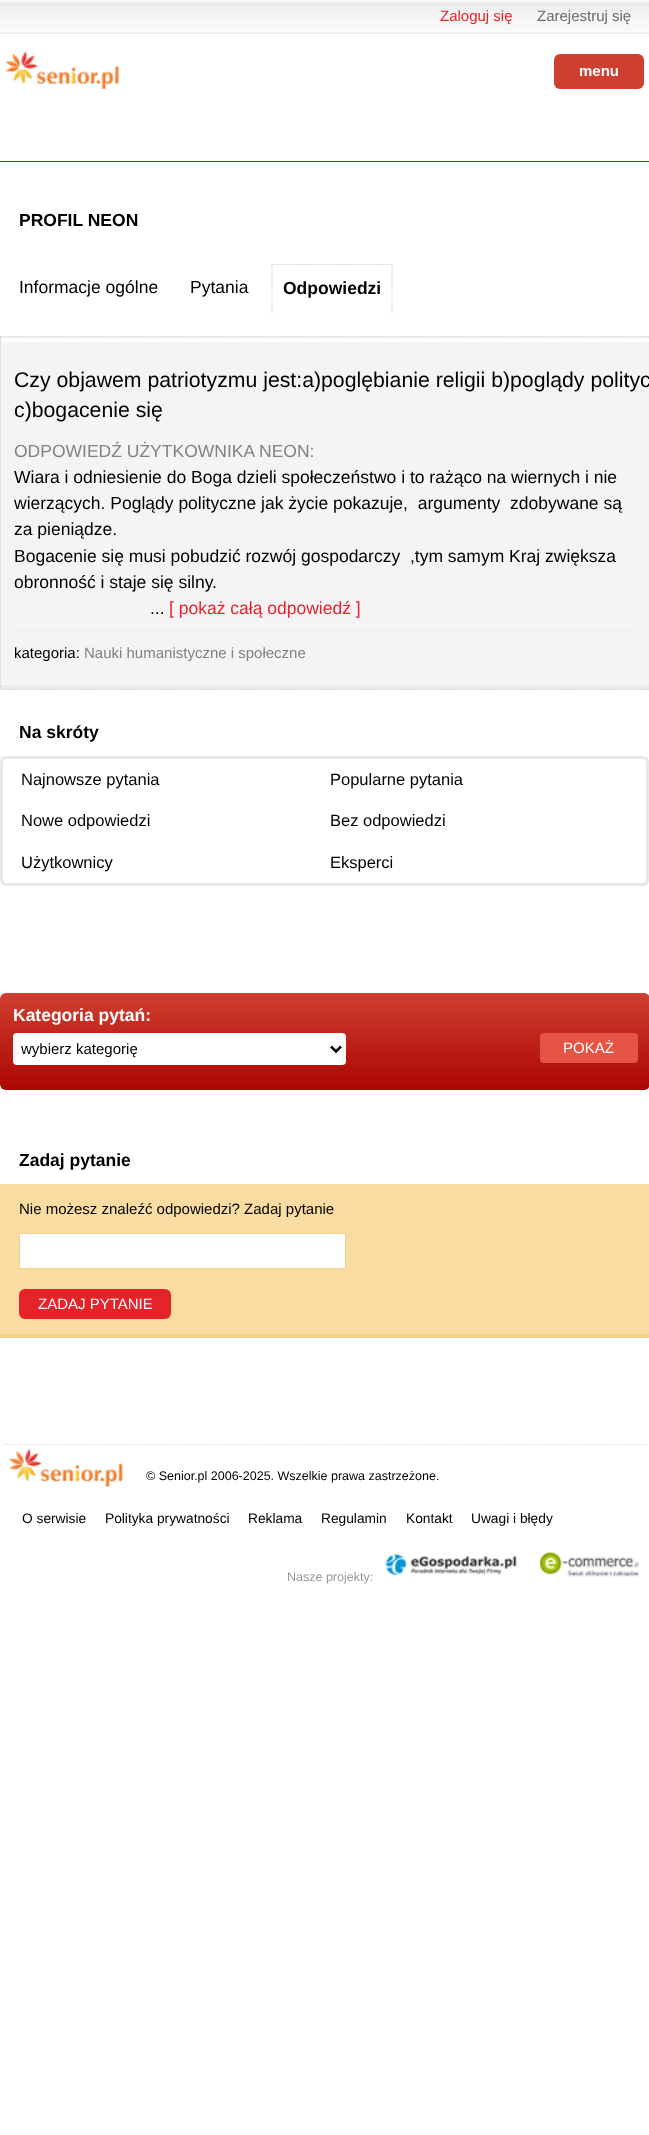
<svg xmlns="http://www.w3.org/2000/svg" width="649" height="2135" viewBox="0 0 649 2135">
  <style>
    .t1 { font: 15px Liberation Sans; fill: #e62329; }
    .t2 { font: 15px Liberation Sans; fill: #6a6a6a; }
    .t3 { font: bold 15px Liberation Sans; fill: #fff; }
    .t4 { font: bold 17.5px Liberation Sans; fill: #000; }
    .t5 { font: 17.5px Liberation Sans; fill: #000; }
    .t6 { font: 21.25px Liberation Sans; fill: #000; }
    .t7 { font: 17.5px Liberation Sans; fill: #828282; }
    .t8 { font: 17.5px Liberation Sans; fill: #e62329; }
    .t9 { font: 15px Liberation Sans; fill: #000; }
    .t10 { font: 15px Liberation Sans; fill: #828282; }
    .t11 { font: 16.5px Liberation Sans; fill: #000; }
    .t12 { font: bold 17.5px Liberation Sans; fill: #fff; }
    .t13 { font: 15px Liberation Sans; fill: #fff; }
    .t14 { font: 12.5px Liberation Sans; fill: #000; }
    .t15 { font: 13.75px Liberation Sans; fill: #000; }
    .t16 { font: 12.5px Liberation Sans; fill: #999; }
  </style>
  <defs>
    <clipPath id="clip1"><rect x="0" y="264" width="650" height="49"/></clipPath>
    <linearGradient id="g1" gradientUnits="userSpaceOnUse" x1="325" y1="993" x2="325" y2="1090"><stop offset="0" stop-color="#cf3f2f"/><stop offset="1" stop-color="#ab0603"/></linearGradient>
  </defs>
  <rect width="100%" height="100%" fill="#fff"/>
  <image x="0" y="0" width="649" height="34" href="images/1.png"/>
  <text x="440" y="21" class="t1">Zaloguj się</text>
  <text x="537" y="21" class="t2">Zarejestruj się</text>
  <rect x="0" y="161" width="649" height="1" fill="#bd2219"/>
  <image x="5" y="51" width="114" height="38" href="images/2.png"/>
  <rect x="554" y="54" width="90" height="35" rx="6" fill="#cf3f2f"/>
  <text x="579" y="76" class="t3">menu</text>
  <text x="19" y="226" class="t4">PROFIL NEON</text>
  <text x="19" y="293" class="t5">Informacje ogólne</text>
  <text x="190" y="293" class="t5">Pytania</text>
  <g clip-path="url(#clip1)">
    <path d="M271 264.5H392.5" fill="none" stroke="#d0d0d0" stroke-width="1.2" stroke-dasharray="1.25 1.25"/>
  </g>
  <path d="M392 264V312.5" fill="none" stroke="#d0d0d0" stroke-width="1.2" stroke-dasharray="1.25 1.25"/>
  <path d="M272 264V312.5" fill="none" stroke="#d0d0d0" stroke-width="1.2" stroke-dasharray="1.25 1.25"/>
  <text x="283" y="294" class="t4">Odpowiedzi</text>
  <rect x="0" y="336" width="649" height="354" fill="#f4f4f4"/>
  <path d="M0 337H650" fill="none" stroke="#d0d0d0" stroke-width="1.2" stroke-dasharray="1.25 1.25"/>
  <path d="M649.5 336V690" fill="none" stroke="#d0d0d0" stroke-width="1.2" stroke-dasharray="1.25 1.25"/>
  <path d="M0 689.5H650" fill="none" stroke="#d0d0d0" stroke-width="1.2" stroke-dasharray="1.25 1.25"/>
  <path d="M.5 336V690" fill="none" stroke="#d0d0d0" stroke-width="1.2" stroke-dasharray="1.25 1.25"/>
  <rect x="1" y="338" width="648" height="4" fill="#fff"/>
  <rect x="1" y="685" width="648" height="4" fill="#eceaef"/>
  <text x="14" y="387" class="t6">Czy objawem patriotyzmu jest:a)poglębianie religii b)poglądy polityc</text>
  <text x="14" y="417" class="t6">c)bogacenie się</text>
  <text x="14" y="457" class="t7">ODPOWIEDŹ UŻYTKOWNIKA NEON:</text>
  <text x="14" y="483" class="t5">Wiara i odniesienie do Boga dzieli społeczeństwo i to rażąco na wiernych i nie</text>
  <text x="14" y="509" class="t5" xml:space="preserve">wierzących. Poglądy polityczne jak życie pokazuje,  argumenty  zdobywane są</text>
  <text x="14" y="535" class="t5">za pieniądze.</text>
  <text x="14" y="562" class="t5" xml:space="preserve">Bogacenie się musi pobudzić rozwój gospodarczy  ,tym samym Kraj zwiększa</text>
  <text x="14" y="588" class="t5">obronność i staje się silny.</text>
  <text x="150" y="614" class="t5">...</text>
  <text x="169" y="614" class="t8">[ pokaż całą odpowiedź ]</text>
  <path d="M14 630.5H636" fill="none" stroke="#e5e5e5" stroke-width="1.2" stroke-dasharray="1.25 1.25"/>
  <text x="14" y="658" class="t9">kategoria:</text>
  <text x="84" y="658" class="t10">Nauki humanistyczne i społeczne</text>
  <text x="19" y="738" class="t4">Na skróty</text>
  <rect x="1.5" y="757.5" width="646" height="127" rx="4.5" fill="none" stroke="#e9e8e8" stroke-width="3"/>
  <text x="21" y="785" class="t11">Najnowsze pytania</text>
  <text x="330" y="785" class="t11">Popularne pytania</text>
  <text x="21" y="826" class="t11">Nowe odpowiedzi</text>
  <text x="330" y="826" class="t11">Bez odpowiedzi</text>
  <text x="21" y="868" class="t11">Użytkownicy</text>
  <text x="330" y="868" class="t11">Eksperci</text>
  <rect x="0" y="993" width="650" height="97" rx="6" fill="url(#g1)"/>
  <text x="13" y="1021" class="t12">Kategoria pytań:</text>
  <rect x="13" y="1033" width="333" height="32" rx="4" fill="#fff"/>
  <path d="M331 1046.5L336 1051.5L341 1046.5" fill="none" stroke="#000" stroke-width="2.5"/>
  <text x="21" y="1054" class="t9">wybierz kategorię</text>
  <rect x="540" y="1033" width="98" height="30" rx="4" fill="#e55445"/>
  <text x="563" y="1053" class="t13">POKAŻ</text>
  <text x="19" y="1166" class="t4">Zadaj pytanie</text>
  <rect x="0" y="1184" width="649" height="150" fill="#f9dca2"/>
  <rect x="0" y="1334" width="649" height="4" fill="#f5d28c"/>
  <text x="19" y="1214" class="t9">Nie możesz znaleźć odpowiedzi? Zadaj pytanie</text>
  <rect x="19.5" y="1233.5" width="326" height="35" fill="#fff" stroke="#f5d28c"/>
  <rect x="19" y="1289" width="152" height="30" rx="6" fill="#e62329"/>
  <text x="38" y="1309" class="t13">ZADAJ PYTANIE</text>
  <path d="M4 1444.5H646" fill="none" stroke="#dadada" stroke-width="1.2" stroke-dasharray="1.25 1.25"/>
  <image x="8" y="1448" width="115" height="39" href="images/3.png"/>
  <text x="146" y="1480" class="t14">© Senior.pl 2006-2025. Wszelkie prawa zastrzeżone.</text>
  <text x="22" y="1523" class="t15">O serwisie</text>
  <text x="105" y="1523" class="t15">Polityka prywatności</text>
  <text x="248" y="1523" class="t15">Reklama</text>
  <text x="321" y="1523" class="t15">Regulamin</text>
  <text x="406" y="1523" class="t15">Kontakt</text>
  <text x="471" y="1523" class="t15">Uwagi i błędy</text>
  <image x="385" y="1553" width="132" height="23" href="images/4.png"/>
  <image x="539" y="1552" width="100" height="25" href="images/5.png"/>
  <text x="287" y="1581" class="t16">Nasze projekty:</text>
</svg>
